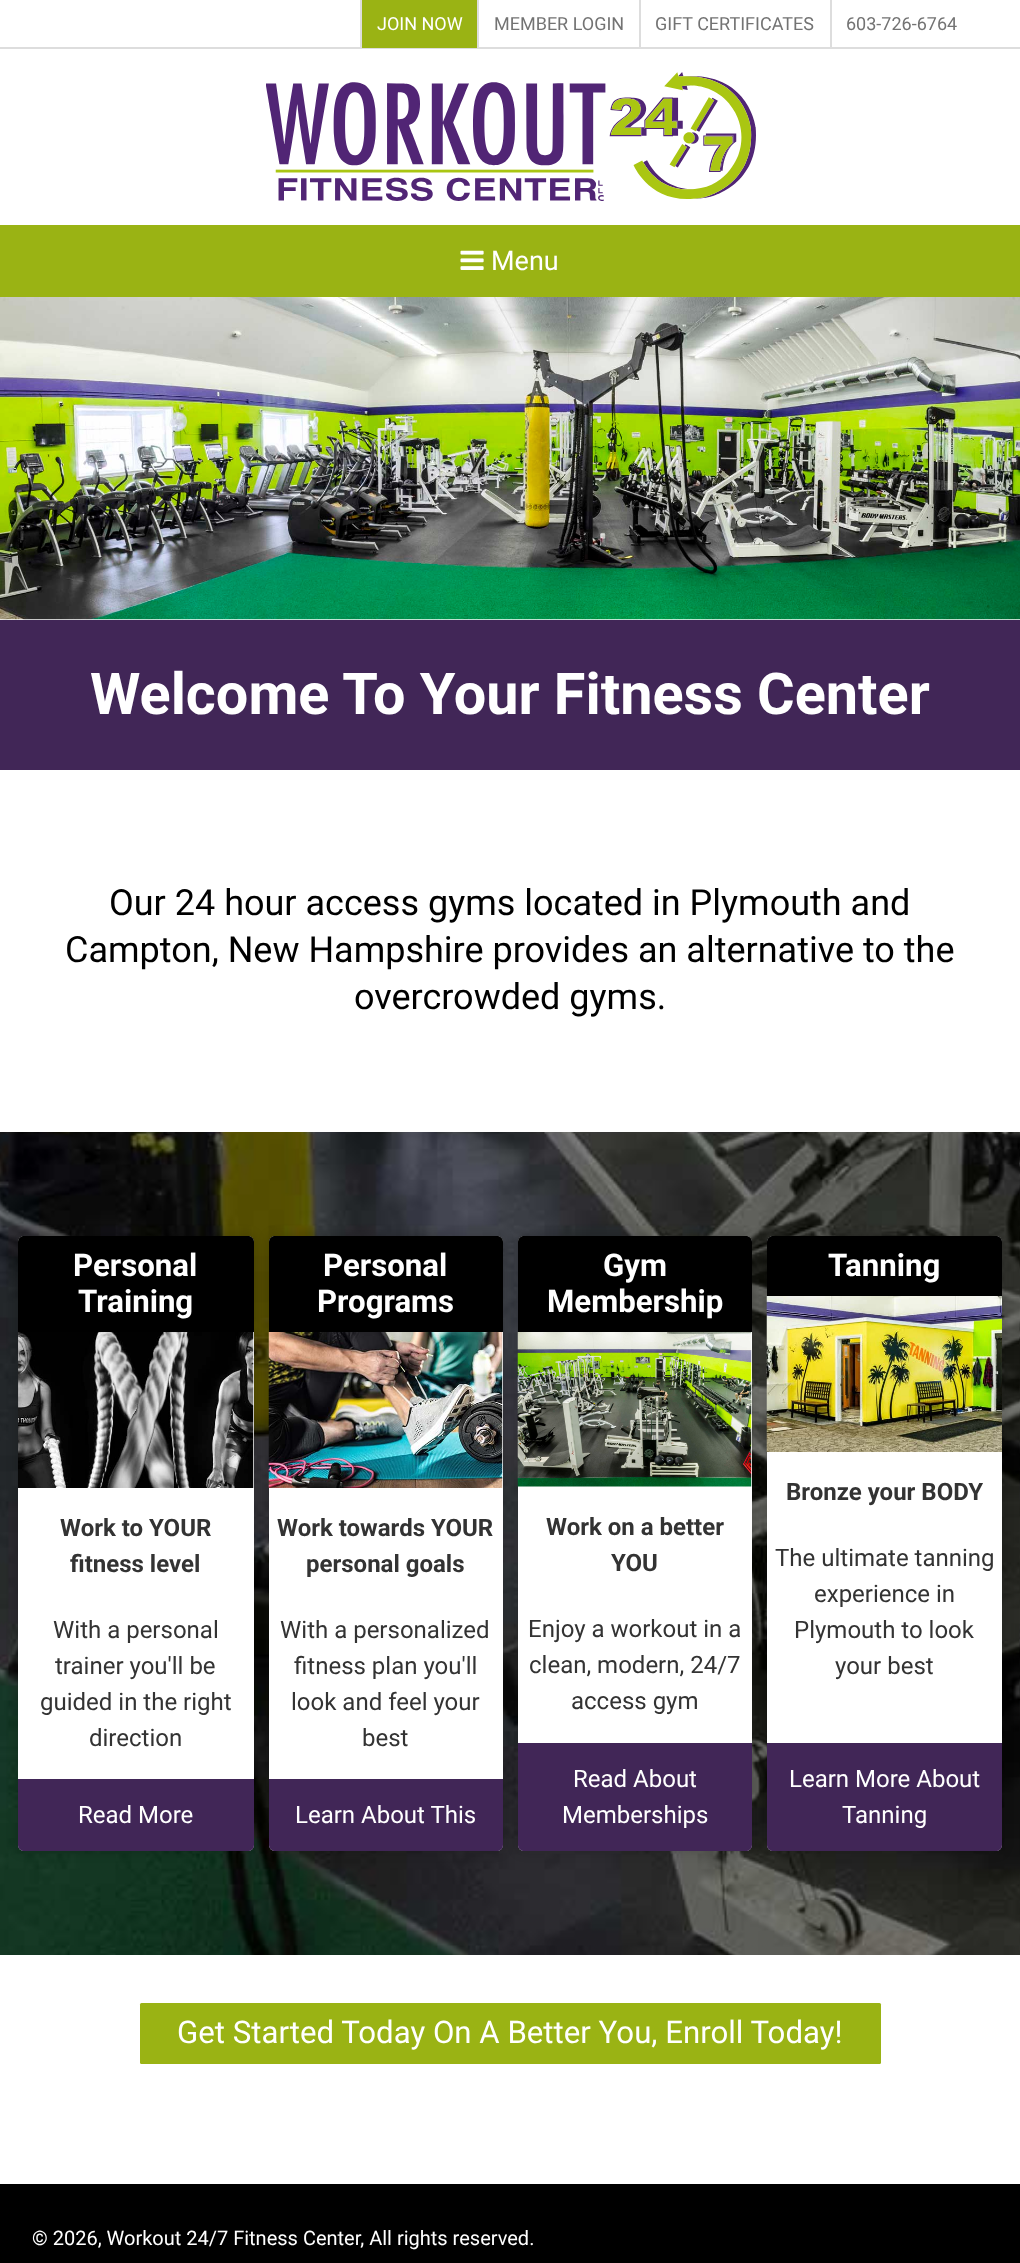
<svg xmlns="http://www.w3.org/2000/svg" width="1020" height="2263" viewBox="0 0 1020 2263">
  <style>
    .t1 { font: 18px Roboto; fill: #fff; }
    .t2 { font: 18px Roboto; fill: #737373; }
    .t3 { font: 27px Roboto; fill: #fff; }
    .t4 { font: bold 57.6px Roboto; fill: #fff; }
    .t5 { font: 36px Roboto; fill: #000; }
    .t6 { font: bold 31.2px Roboto; fill: #fff; }
    .t7 { font: bold 24px Roboto; fill: #333; }
    .t8 { font: 24px Roboto; fill: #333; }
    .t9 { font: 24px Roboto; fill: #fff; }
    .t10 { font: 31.2px Roboto; fill: #fff; }
    .t11 { font: 20px Roboto; fill: #fff; }
  </style>
  <rect width="100%" height="100%" fill="#fff"/>
  <rect x="0" y="47" width="1020" height="2" fill="#ddd"/>
  <rect x="362" y="0" width="115" height="48" fill="#9ab314"/>
  <rect x="360" y="0" width="2" height="48" fill="#ddd"/>
  <text x="377" y="30" class="t1">JOIN NOW</text>
  <rect x="477" y="0" width="2" height="48" fill="#ddd"/>
  <text x="494" y="30" class="t2">MEMBER LOGIN</text>
  <rect x="639" y="0" width="2" height="48" fill="#ddd"/>
  <text x="655" y="30" class="t2">GIFT CERTIFICATES</text>
  <rect x="830" y="0" width="2" height="48" fill="#ddd"/>
  <text x="846" y="30" class="t2">603-726-6764</text>
  <image x="266" y="72" width="490" height="129" href="images/1.png"/>
  <rect x="0" y="225" width="1020" height="72" fill="#9ab314"/>
  <image x="460" y="250" width="24" height="20" href="images/2.png"/>
  <text x="491" y="270" class="t3">Menu</text>
  <image x="0" y="297" width="1020" height="323" href="images/3.png"/>
  <rect x="0" y="620" width="1020" height="150" fill="#412657"/>
  <text x="90" y="714" class="t4">Welcome To Your Fitness Center</text>
  <text x="109" y="915" class="t5">Our 24 hour access gyms located in Plymouth and</text>
  <text x="65" y="962" class="t5">Campton, New Hampshire provides an alternative to the</text>
  <text x="354" y="1009" class="t5">overcrowded gyms.</text>
  <image x="0" y="1132" width="1020" height="823" href="images/4.png"/>
  <rect x="18" y="1236" width="236" height="615" rx="6" fill="#00000030" filter="blur(6px)"/>
  <rect x="18" y="1236" width="236" height="615" rx="6" fill="#fff"/>
  <path d="M24 1236H248C251.5 1236 254 1238.5 254 1242V1332H18V1242C18 1238.5 20.5 1236 24 1236Z" fill="#000"/>
  <text x="73" y="1276" class="t6">Personal</text>
  <text x="78" y="1312" class="t6">Training</text>
  <image x="18" y="1332" width="236" height="156" href="images/5.png"/>
  <text x="60" y="1536" class="t7">Work to YOUR</text>
  <text x="70" y="1572" class="t7">fitness level</text>
  <text x="53" y="1638" class="t8">With a personal</text>
  <text x="55" y="1674" class="t8">trainer you'll be</text>
  <text x="40" y="1710" class="t8">guided in the right</text>
  <text x="89" y="1746" class="t8">direction</text>
  <path d="M18 1779H254V1845C254 1848.5 251.5 1851 248 1851H24C20.5 1851 18 1848.5 18 1845Z" fill="#412657"/>
  <text x="78" y="1823" class="t9">Read More</text>
  <rect x="269" y="1236" width="234" height="615" rx="6" fill="#00000030" filter="blur(6px)"/>
  <rect x="269" y="1236" width="234" height="615" rx="6" fill="#fff"/>
  <path d="M275 1236H497C500.5 1236 503 1238.5 503 1242V1332H269V1242C269 1238.5 271.5 1236 275 1236Z" fill="#000"/>
  <text x="323" y="1276" class="t6">Personal</text>
  <text x="317" y="1312" class="t6">Programs</text>
  <image x="268" y="1332" width="235" height="156" href="images/6.png"/>
  <text x="277" y="1536" class="t7">Work towards YOUR</text>
  <text x="306" y="1572" class="t7">personal goals</text>
  <text x="280" y="1638" class="t8">With a personalized</text>
  <text x="294" y="1674" class="t8">fitness plan you'll</text>
  <text x="291" y="1710" class="t8">look and feel your</text>
  <text x="362" y="1746" class="t8">best</text>
  <path d="M269 1779H503V1845C503 1848.5 500.5 1851 497 1851H275C271.5 1851 269 1848.5 269 1845Z" fill="#412657"/>
  <text x="295" y="1823" class="t9">Learn About This</text>
  <rect x="518" y="1236" width="234" height="615" rx="6" fill="#00000030" filter="blur(6px)"/>
  <rect x="518" y="1236" width="234" height="615" rx="6" fill="#fff"/>
  <path d="M524 1236H746C749.5 1236 752 1238.5 752 1242V1332H518V1242C518 1238.5 520.5 1236 524 1236Z" fill="#000"/>
  <text x="603" y="1276" class="t6">Gym</text>
  <text x="547" y="1312" class="t6">Membership</text>
  <image x="517" y="1332" width="235" height="155" href="images/7.png"/>
  <text x="546" y="1535" class="t7">Work on a better</text>
  <text x="611" y="1571" class="t7">YOU</text>
  <text x="528" y="1637" class="t8">Enjoy a workout in a</text>
  <text x="529" y="1673" class="t8">clean, modern, 24/7</text>
  <text x="571" y="1709" class="t8">access gym</text>
  <path d="M518 1743H752V1845C752 1848.5 749.5 1851 746 1851H524C520.5 1851 518 1848.5 518 1845Z" fill="#412657"/>
  <text x="573" y="1787" class="t9">Read About</text>
  <text x="562" y="1823" class="t9">Memberships</text>
  <rect x="767" y="1236" width="235" height="615" rx="6" fill="#00000030" filter="blur(6px)"/>
  <rect x="767" y="1236" width="235" height="615" rx="6" fill="#fff"/>
  <path d="M773 1236H996C999.5 1236 1002 1238.5 1002 1242V1296H767V1242C767 1238.5 769.5 1236 773 1236Z" fill="#000"/>
  <text x="828" y="1276" class="t6">Tanning</text>
  <image x="766" y="1296" width="236" height="156" href="images/8.png"/>
  <text x="786" y="1500" class="t7">Bronze your BODY</text>
  <text x="775" y="1566" class="t8">The ultimate tanning</text>
  <text x="814" y="1602" class="t8">experience in</text>
  <text x="794" y="1638" class="t8">Plymouth to look</text>
  <text x="835" y="1674" class="t8">your best</text>
  <path d="M767 1743H1002V1845C1002 1848.5 999.5 1851 996 1851H773C769.5 1851 767 1848.5 767 1845Z" fill="#412657"/>
  <text x="789" y="1787" class="t9">Learn More About</text>
  <text x="842" y="1823" class="t9">Tanning</text>
  <rect x="140" y="2003" width="741" height="61" rx="1.5" fill="#9ab314"/>
  <text x="177" y="2043" class="t10">Get Started Today On A Better You, Enroll Today!</text>
  <rect x="0" y="2184" width="1020" height="79" fill="#000"/>
  <text x="32" y="2245" class="t11">© 2026, Workout 24/7 Fitness Center, All rights reserved.</text>
</svg>
